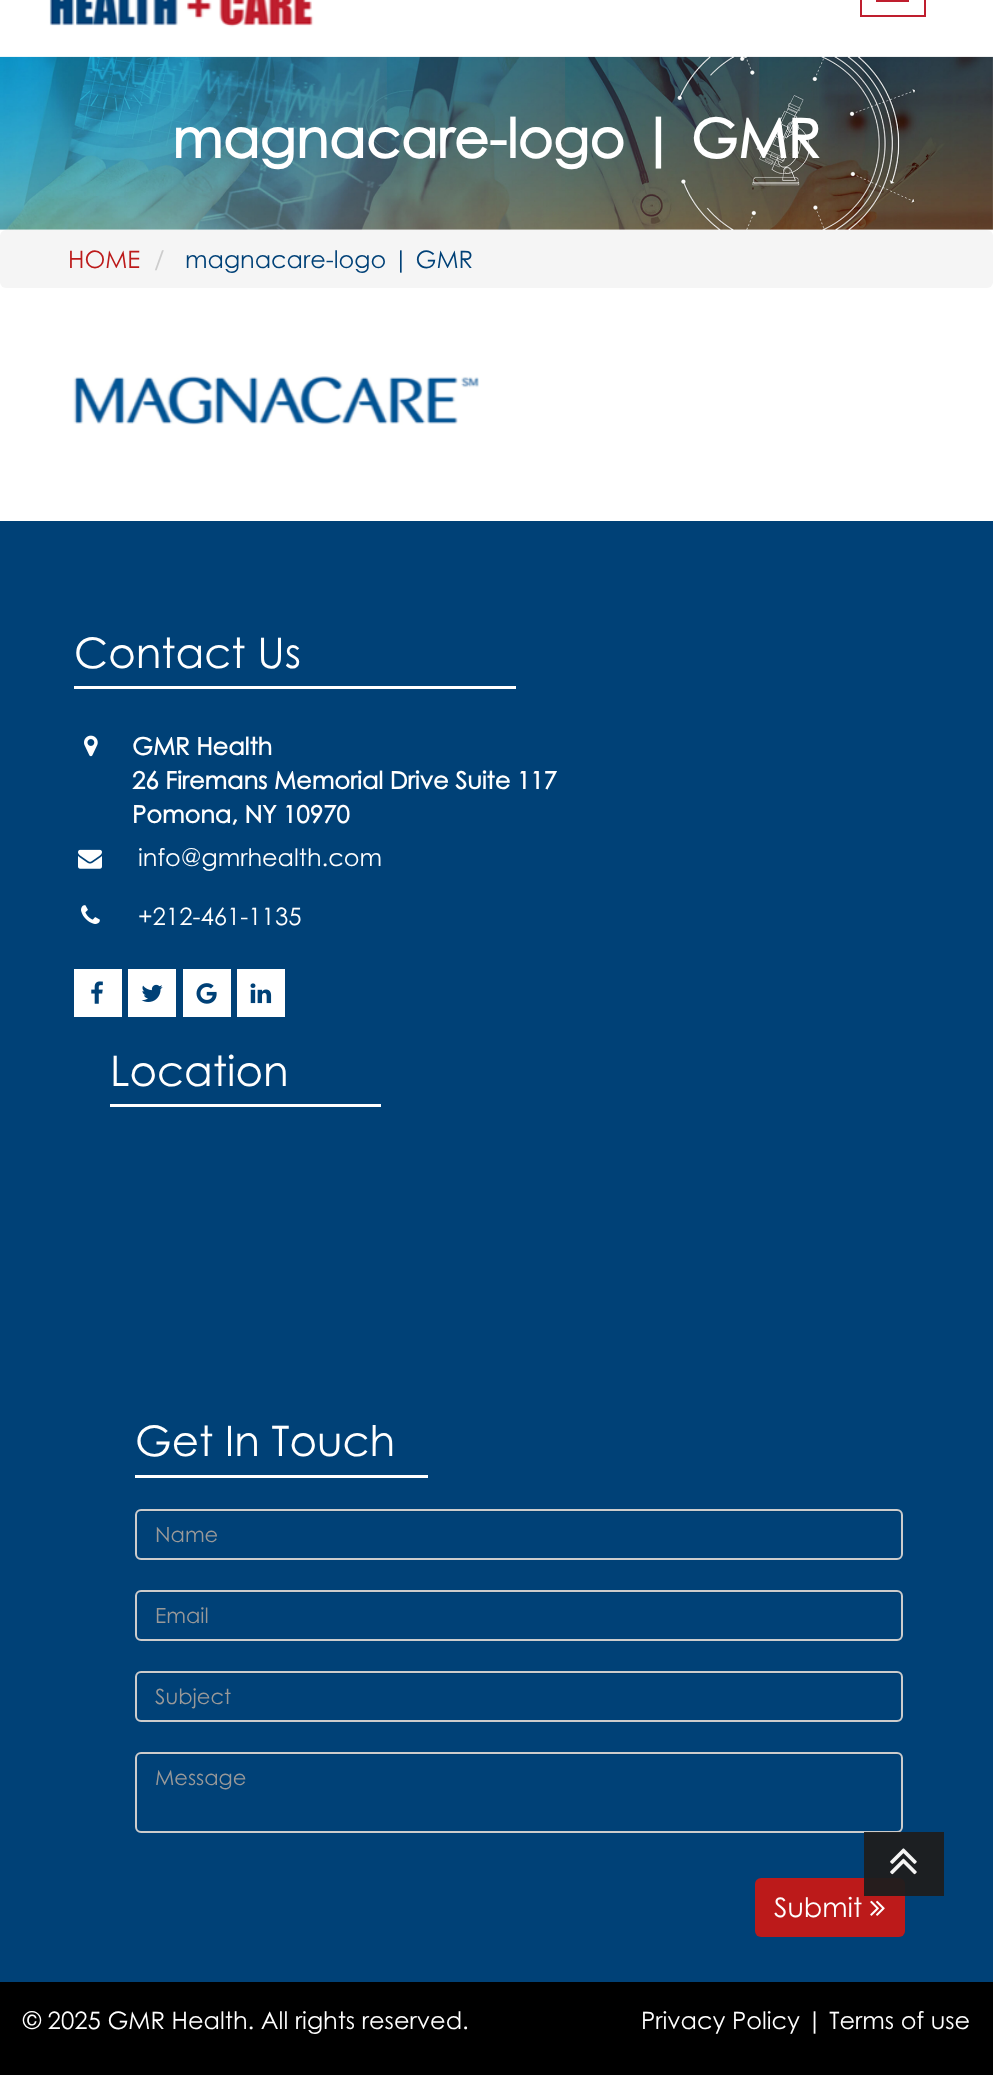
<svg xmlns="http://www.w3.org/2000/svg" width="993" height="2075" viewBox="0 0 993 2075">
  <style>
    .t1 { font: bold 54px Century Gothic; fill: #fff; }
    .t2 { font: 24px Century Gothic; fill: #bc1a1a; }
    .t3 { font: 24px Century Gothic; fill: #ccc; }
    .t4 { font: 24px Century Gothic; fill: #004177; }
    .t5 { font: 42px Century Gothic; fill: #fff; }
    .t6 { font: bold 24px Century Gothic; fill: #fff; }
    .t7 { font: 24px Century Gothic; fill: #fff; }
    .t8 { font: 21px Century Gothic; fill: #999; }
    .t9 { font: 27px Century Gothic; fill: #fff; }
  </style>
  <rect width="100%" height="100%" fill="#fff"/>
  <image x="49" y="0" width="265" height="27" href="images/1.png"/>
  <rect x="861" y="-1" width="64" height="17" fill="none" stroke="#bf1e2e" stroke-width="2"/>
  <rect x="876" y="0" width="33" height="2" fill="#bf1e2e"/>
  <image x="0" y="56" width="993" height="174" href="images/2.png"/>
  <text x="172" y="158" class="t1">magnacare-logo | GMR</text>
  <rect x="0" y="230" width="993" height="58" rx="6" fill="#f5f5f5"/>
  <text x="68" y="268" class="t2">HOME</text>
  <text x="154" y="268" class="t3">/</text>
  <text x="185" y="268" class="t4">magnacare-logo | GMR</text>
  <image x="73" y="376" width="406" height="49" href="images/3.png"/>
  <rect x="0" y="521" width="993" height="1461" fill="#004177"/>
  <text x="74" y="668" class="t5">Contact Us</text>
  <rect x="74" y="686" width="442" height="3" fill="#fff"/>
  <image x="84" y="735" width="14" height="22" href="images/4.png"/>
  <text x="132" y="755" class="t6">GMR Health</text>
  <text x="132" y="789" class="t6">26 Firemans Memorial Drive Suite 117</text>
  <text x="132" y="823" class="t6">Pomona, NY 10970</text>
  <image x="78" y="849" width="24" height="20" href="images/5.png"/>
  <text x="138" y="866" class="t7">info@gmrhealth.com</text>
  <image x="81" y="905" width="19" height="19" href="images/6.png"/>
  <text x="138" y="925" class="t7">+212-461-1135</text>
  <rect x="74" y="969" width="48" height="48" fill="#fff"/>
  <image x="91" y="981" width="12" height="23" href="images/7.png"/>
  <rect x="128" y="969" width="48" height="48" fill="#fff"/>
  <image x="141" y="984" width="22" height="18" href="images/8.png"/>
  <rect x="183" y="969" width="48" height="48" fill="#fff"/>
  <image x="196" y="983" width="21" height="21" href="images/9.png"/>
  <rect x="237" y="969" width="48" height="48" fill="#fff"/>
  <image x="250" y="983" width="22" height="21" href="images/10.png"/>
  <text x="110" y="1086" class="t5">Location</text>
  <rect x="110" y="1104" width="271" height="3" fill="#fff"/>
  <text x="135" y="1456" class="t5">Get In Touch</text>
  <rect x="135" y="1475" width="293" height="3" fill="#fff"/>
  <path d="M141 1512H897C899 1512 902 1514 902 1516C902 1513 900 1511 897 1511H142C140 1511 139 1512 138 1513Z" fill="#003c6e"/>
  <rect x="136" y="1510" width="766" height="49" rx="5" fill="none" stroke="#ccc" stroke-width="2"/>
  <text x="155" y="1542" class="t8">Name</text>
  <path d="M141 1593H897C899 1593 902 1595 902 1598V1597C902 1594 900 1592 897 1592H142C140 1592 139 1593 138 1594Z" fill="#003c6e"/>
  <rect x="136" y="1591" width="766" height="49" rx="5" fill="none" stroke="#ccc" stroke-width="2"/>
  <text x="155" y="1623" class="t8">Email</text>
  <path d="M141 1674H897C899 1674 902 1676 902 1678C902 1675 900 1673 897 1673H142C140 1673 139 1674 138 1675Z" fill="#003c6e"/>
  <rect x="136" y="1672" width="766" height="49" rx="5" fill="none" stroke="#ccc" stroke-width="2"/>
  <text x="155" y="1704" class="t8">Subject</text>
  <path d="M141 1755H897C899 1755 902 1757 902 1760V1759C902 1756 900 1754 897 1754H142C140 1754 139 1755 138 1756Z" fill="#003c6e"/>
  <rect x="136" y="1753" width="766" height="79" rx="5" fill="none" stroke="#ccc" stroke-width="2"/>
  <text x="155" y="1785" class="t8">Message</text>
  <rect x="755" y="1878" width="150" height="59" rx="6" fill="#bc1a1a"/>
  <text x="774" y="1917" class="t9">Submit</text>
  <image x="870" y="1900" width="15" height="16" href="images/11.png"/>
  <rect x="0" y="1982" width="993" height="93" fill="#000"/>
  <rect x="864" y="1832" width="80" height="64" fill="#1d1d1df2"/>
  <image x="890" y="1848" width="27" height="27" href="images/12.png"/>
  <text x="23" y="2029" class="t7">© 2025 GMR Health. All rights reserved.</text>
  <text x="641" y="2029" class="t7">Privacy Policy | Terms of use</text>
</svg>
